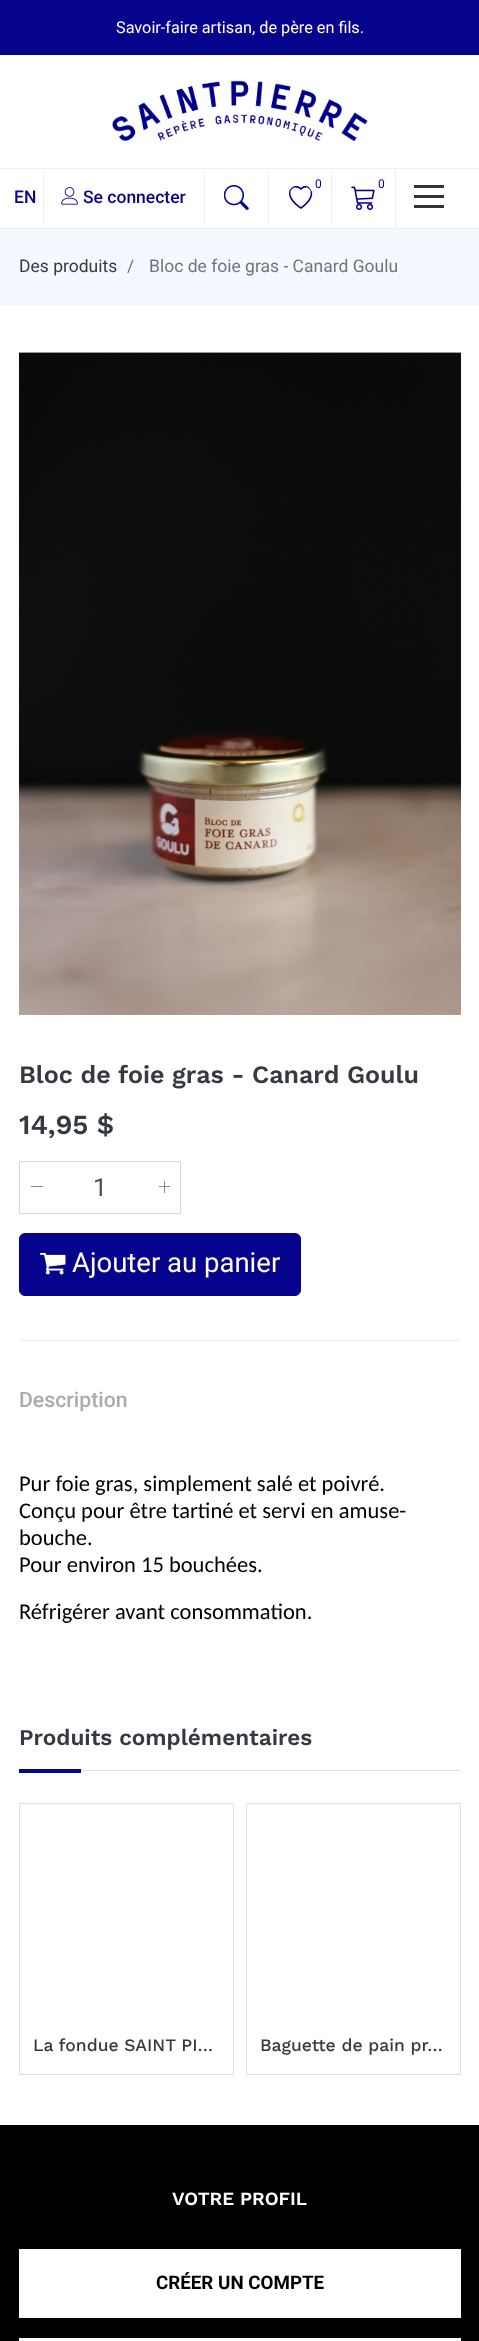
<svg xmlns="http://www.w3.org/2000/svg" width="479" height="2341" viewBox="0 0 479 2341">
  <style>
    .t1 { font: 16.25px Roboto; fill: #fff; }
    .t2 { font: 12px Roboto; fill: #06038d; }
    .t3 { font: 500 17.5px Roboto; fill: #06038d; }
    .t4 { font: 17.5px Roboto; fill: #343a40; }
    .t5 { font: 17.5px Roboto; fill: #6c757d; }
    .t6 { font: 600 25px Work Sans; fill: #343a40; }
    .t7 { font: 600 27.5px Work Sans; fill: #343a40; }
    .t8 { font: 25px Roboto; fill: #495057; }
    .t9 { font: 27.5px Roboto; fill: #fff; }
    .t10 { font: 500 21.25px Roboto; fill: #ababab; }
    .t11 { font: 22.5px Carlito; fill: #000; }
    .t12 { font: 600 22.5px Work Sans; fill: #343a40; }
    .t13 { font: 500 17.5px Work Sans; fill: #343a40; }
    .t14 { font: 600 18.75px Work Sans; fill: #fff; }
    .t15 { font: bold 18.75px Roboto; fill: #000; }
  </style>
  <rect width="100%" height="100%" fill="#fff"/>
  <rect x="0" y="0" width="479" height="55" fill="#06038d"/>
  <text x="116" y="33" class="t1">Savoir-faire artisan, de père en fils.</text>
  <image x="112" y="80" width="256" height="61" href="images/1.png"/>
  <rect x="0" y="168" width="479" height="1" fill="#eee"/>
  <rect x="0" y="228" width="479" height="1" fill="#eee"/>
  <rect x="204" y="170" width="1" height="56" fill="#eee"/>
  <image x="224" y="185" width="25" height="25" href="images/2.png"/>
  <rect x="268" y="170" width="1" height="56" fill="#eee"/>
  <path d="M301 190C293 182 282 194 301 207C319 194 308 182 301 190ZM301 209C278 194 294 181 301 188C307 181 323 194 301 209Z" fill="#06038d"/>
  <circle cx="318.5" cy="184.5" r="9.5" fill="#fff"/>
  <text x="315" y="188" class="t2">0</text>
  <rect x="331" y="170" width="1" height="56" fill="#eee"/>
  <image x="351" y="186" width="24" height="24" href="images/3.png"/>
  <rect x="373" y="175" width="18" height="19" rx="9" fill="#fff"/>
  <text x="378" y="188" class="t2">0</text>
  <rect x="395" y="169" width="1" height="59" fill="#eee"/>
  <rect x="414" y="185" width="30" height="3" fill="#333"/>
  <rect x="414" y="195" width="30" height="3" fill="#333"/>
  <rect x="414" y="205" width="30" height="3" fill="#333"/>
  <text x="14" y="203" class="t3">EN</text>
  <rect x="43" y="170" width="1" height="56" fill="#eee"/>
  <image x="61" y="187" width="17" height="18" href="images/4.png"/>
  <text x="83" y="203" class="t3">Se connecter</text>
  <rect x="0" y="229" width="479" height="76" fill="#f5f9ff"/>
  <text x="19" y="272" class="t4">Des produits</text>
  <text x="127" y="272" class="t5">/</text>
  <text x="149" y="272" class="t5">Bloc de foie gras - Canard Goulu</text>
  <image x="19" y="352" width="442" height="663" href="images/5.png"/>
  <text x="19" y="1083" class="t6">Bloc de foie gras - Canard Goulu</text>
  <text x="19" y="1134" class="t7">14,95 $</text>
  <rect x="19.5" y="1161.5" width="161" height="52" fill="none" stroke="#d7d7d7"/>
  <rect x="31" y="1186" width="12" height="1" fill="#888"/>
  <text x="93" y="1196" class="t8">1</text>
  <rect x="159" y="1186" width="11" height="1" fill="#888"/>
  <rect x="164" y="1181" width="1" height="12" fill="#888"/>
  <rect x="19.5" y="1233.5" width="281" height="62" rx="5.5" fill="#06038d" stroke="#06038d"/>
  <image x="40" y="1252" width="26" height="23" href="images/6.png"/>
  <text x="72" y="1272" class="t9">Ajouter au panier</text>
  <rect x="19" y="1340" width="442" height="1" fill="#eee"/>
  <text x="19" y="1407" class="t10">Description</text>
  <text x="19" y="1491" class="t11">Pur foie gras, simplement salé et poivré.</text>
  <text x="19" y="1518" class="t11">Conçu pour être tartiné et servi en amuse-</text>
  <text x="19" y="1545" class="t11">bouche.</text>
  <text x="19" y="1572" class="t11">Pour environ 15 bouchées.</text>
  <text x="19" y="1619" class="t11">Réfrigérer avant consommation.</text>
  <rect x="81" y="1770" width="380" height="1" fill="#dee2e6"/>
  <text x="19" y="1745" class="t12">Produits complémentaires</text>
  <rect x="19" y="1769" width="62" height="4" fill="#06038d"/>
  <rect x="19.5" y="1803.5" width="214" height="271" fill="none" stroke="#dee2e6"/>
  <text x="33" y="2051" class="t13">La fondue SAINT PI…</text>
  <rect x="246.5" y="1803.5" width="214" height="271" fill="none" stroke="#dee2e6"/>
  <text x="260" y="2051" class="t13">Baguette de pain pr…</text>
  <rect x="0" y="2125" width="479" height="216" fill="#000"/>
  <text x="172" y="2205" class="t14">VOTRE PROFIL</text>
  <rect x="19" y="2249" width="442" height="69" fill="#fff"/>
  <text x="156" y="2289" class="t15">CRÉER UN COMPTE</text>
  <rect x="20.5" y="2339.5" width="439" height="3" fill="none" stroke="#fff" stroke-width="3"/>
</svg>
